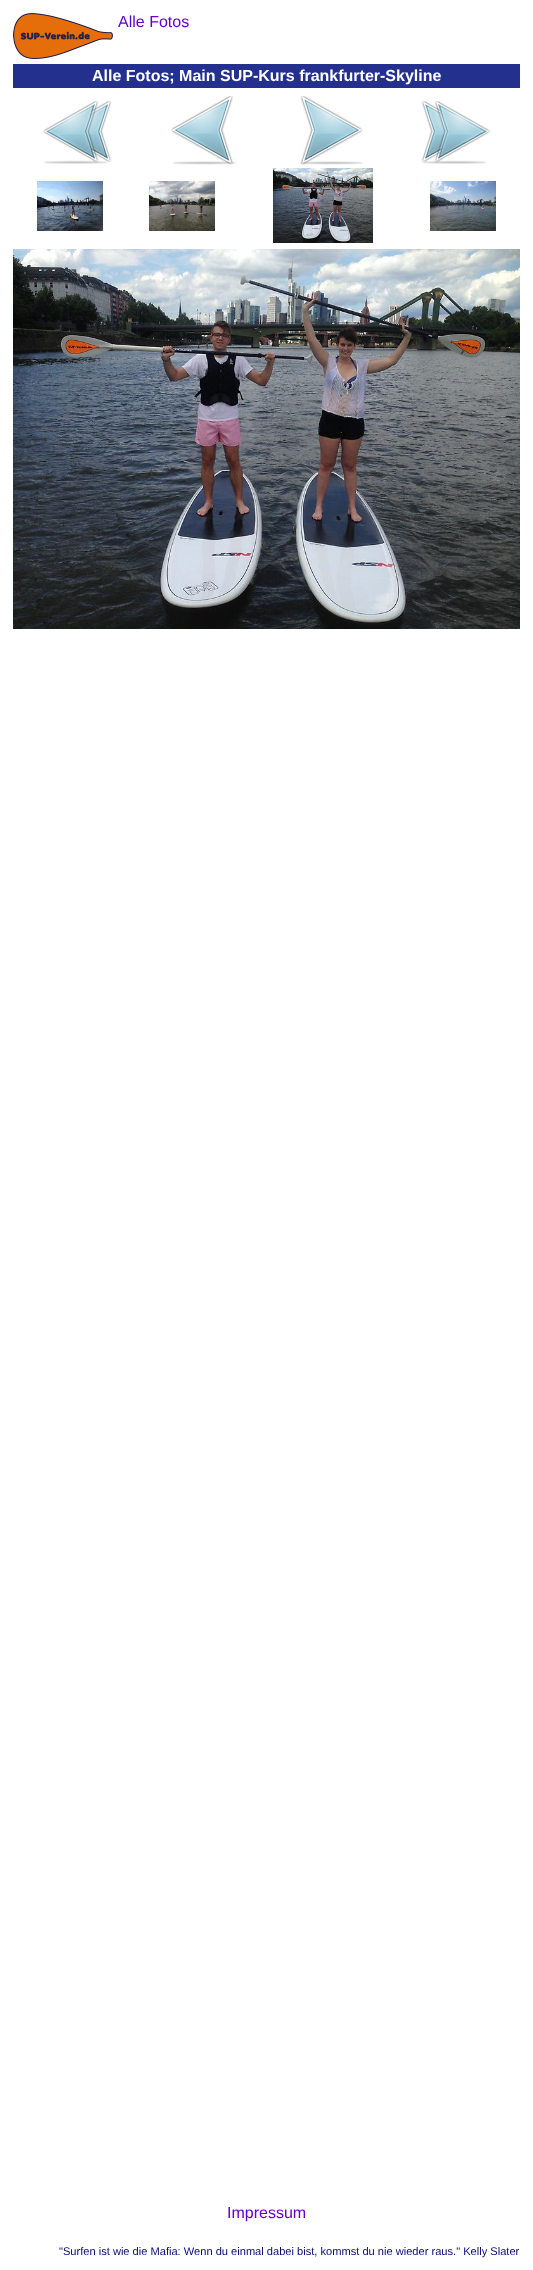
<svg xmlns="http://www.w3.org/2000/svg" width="533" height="2270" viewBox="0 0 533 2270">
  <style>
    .t1 { font: 16px Liberation Sans; fill: #60c; }
    .t2 { font: bold 16px Liberation Sans; fill: #fff; }
    .t3 { font: 11.1px Liberation Sans; fill: #080875; }
  </style>
  <rect width="100%" height="100%" fill="#fff"/>
  <image x="13" y="13" width="100" height="46" href="images/1.png"/>
  <text x="118" y="27" class="t1">Alle Fotos</text>
  <rect x="13" y="64" width="507" height="24" fill="#23308e"/>
  <text x="92" y="81" class="t2">Alle Fotos; Main SUP-Kurs frankfurter-Skyline</text>
  <image x="43" y="101" width="69" height="63" href="images/2.png"/>
  <image x="171" y="96" width="65" height="69" href="images/3.png"/>
  <image x="300" y="96" width="63" height="69" href="images/4.png"/>
  <image x="421" y="101" width="69" height="63" href="images/5.png"/>
  <image x="37" y="181" width="66" height="50" href="images/6.png"/>
  <image x="149" y="181" width="66" height="50" href="images/7.png"/>
  <image x="273" y="168" width="100" height="75" href="images/8.png"/>
  <image x="430" y="181" width="66" height="50" href="images/9.png"/>
  <image x="13" y="249" width="507" height="380" href="images/10.png"/>
  <text x="227" y="2218" class="t1">Impressum</text>
  <text x="59" y="2255" class="t3">"Surfen ist wie die Mafia: Wenn du einmal dabei bist, kommst du nie wieder raus." Kelly Slater</text>
</svg>
